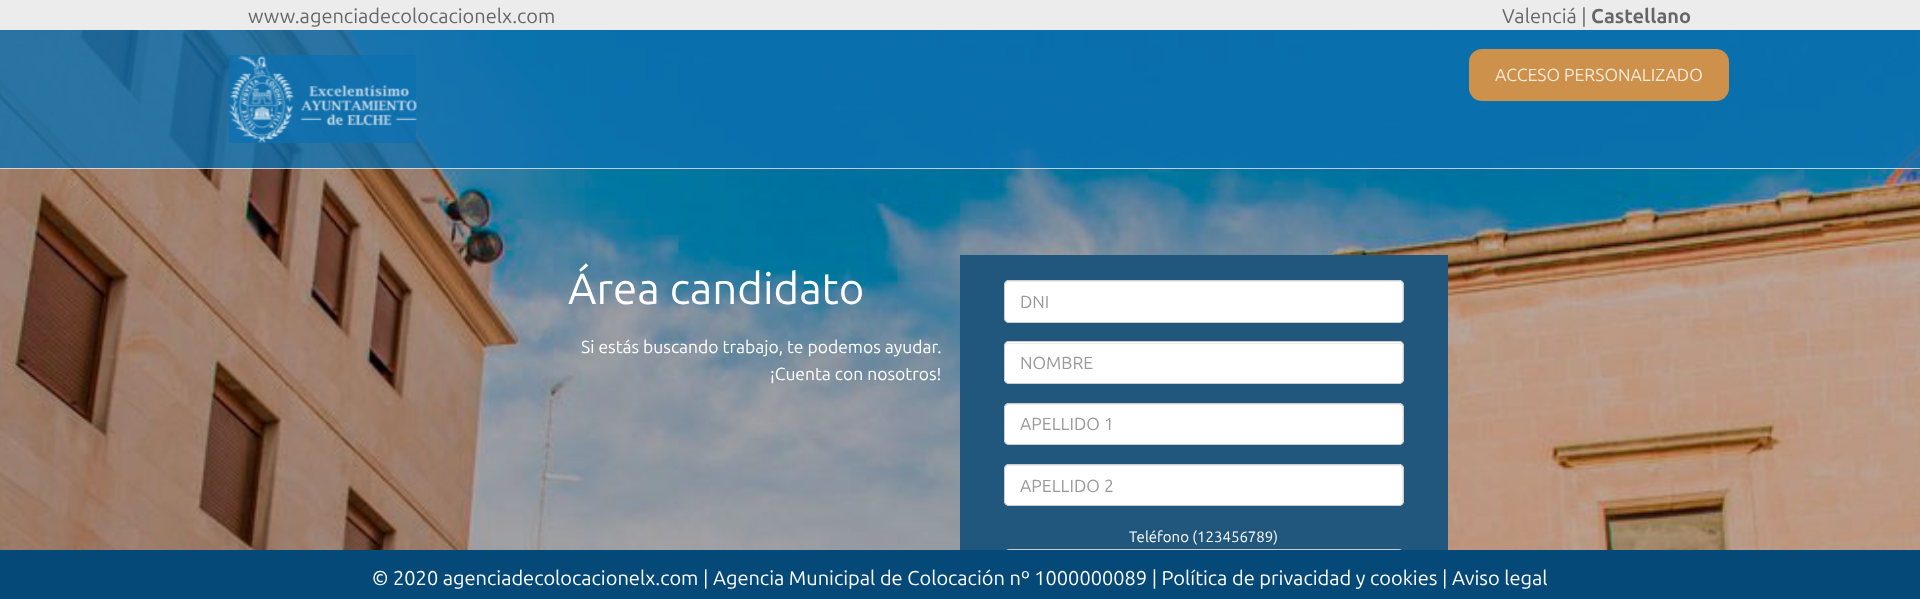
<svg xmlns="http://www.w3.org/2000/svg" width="1920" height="599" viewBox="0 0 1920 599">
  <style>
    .t1 { font: 20px Ubuntu; fill: #666; }
    .t2 { font: bold 20px Ubuntu; fill: #666; }
    .t3 { font: 17.5px Ubuntu; fill: #f5e9db; }
    .t4 { font: 43.75px Ubuntu; fill: #fff; }
    .t5 { font: 17.5px Ubuntu; fill: #fff; }
    .t6 { font: 17.5px Ubuntu; fill: #999; }
    .t7 { font: 15px Ubuntu; fill: #fff; }
    .t8 { font: 20px Ubuntu; fill: #fff; }
  </style>
  <rect width="100%" height="100%" fill="#fff"/>
  <image x="0" y="30" width="1920" height="520" href="images/1.png"/>
  <rect x="0" y="0" width="1920" height="30" fill="#ececec"/>
  <text x="248" y="23" class="t1">www.agenciadecolocacionelx.com</text>
  <text x="1502" y="23" class="t1">Valenciá |</text>
  <text x="1591" y="23" class="t2">Castellano</text>
  <rect x="0" y="30" width="1920" height="138" fill="#0d71b0cc"/>
  <rect x="0" y="168" width="1920" height="1" fill="#e7e7e7cc"/>
  <rect x="229" y="55" width="187" height="88" fill="#0d71b0cc"/>
  <image x="228" y="55" width="189" height="88" href="images/2.png"/>
  <rect x="1469" y="49" width="260" height="52" rx="13" fill="#ce914b"/>
  <text x="1495" y="81" class="t3">ACCESO PERSONALIZADO</text>
  <text x="568" y="304" class="t4">Área candidato</text>
  <text x="581" y="353" class="t5">Si estás buscando trabajo, te podemos ayudar.</text>
  <text x="770" y="380" class="t5">¡Cuenta con nosotros!</text>
  <rect x="960" y="255" width="488" height="295" fill="#21577d"/>
  <rect x="1004" y="280" width="400" height="43" rx="5" fill="#fff"/>
  <path d="M1009 282H1399C1401 282 1402 284 1402 286V320C1403 319 1403 318 1403 317V285C1403 283 1401 281 1399 281H1009C1007 281 1005 283 1005 285V286C1005 284 1007 282 1009 282Z" fill="#ececec"/>
  <rect x="1004.5" y="280.5" width="399" height="42" rx="4.5" fill="none" stroke="#ccc"/>
  <text x="1020" y="308" class="t6">DNI</text>
  <rect x="1004" y="341" width="400" height="43" rx="5" fill="#fff"/>
  <path d="M1009 344H1399C1401 344 1402 345 1402 348V382C1402 381 1403 380 1403 379V347C1403 345 1401 343 1399 343H1009C1007 343 1005 345 1005 347V348C1005 345 1007 344 1009 344Z" fill="#ececec"/>
  <rect x="1004.5" y="341.5" width="399" height="42" rx="4.5" fill="none" stroke="#ccc"/>
  <text x="1020" y="369" class="t6">NOMBRE</text>
  <rect x="1004" y="403" width="400" height="42" rx="5" fill="#fff"/>
  <path d="M1009 405H1399C1404 405 1402 418 1402 420V443C1402 442 1403 441 1403 440V408C1403 406 1401 404 1399 404H1009C1007 404 1005 406 1005 408V409C1005 407 1007 405 1009 405Z" fill="#ececec"/>
  <rect x="1004.5" y="403.5" width="399" height="41" rx="4.5" fill="none" stroke="#ccc"/>
  <text x="1020" y="430" class="t6">APELLIDO 1</text>
  <rect x="1004" y="464" width="400" height="42" rx="5" fill="#fff"/>
  <path d="M1009 466H1399C1404 466 1402 479 1402 481V504C1403 503 1403 502 1403 501V469C1403 467 1401 465 1399 465H1009C1007 465 1005 467 1005 469V470C1005 468 1007 466 1009 466Z" fill="#ececec"/>
  <rect x="1004.5" y="464.5" width="399" height="41" rx="4.5" fill="none" stroke="#ccc"/>
  <text x="1020" y="492" class="t6">APELLIDO 2</text>
  <text x="1129" y="542" class="t7">Teléfono (123456789)</text>
  <rect x="1004.5" y="549.5" width="399" height="41" rx="4.5" fill="none" stroke="#ccc"/>
  <rect x="0" y="550" width="1920" height="49" fill="#054978"/>
  <text x="372" y="585" class="t8">© 2020 agenciadecolocacionelx.com | Agencia Municipal de Colocación nº 1000000089 | Política de privacidad y cookies | Aviso legal</text>
</svg>
